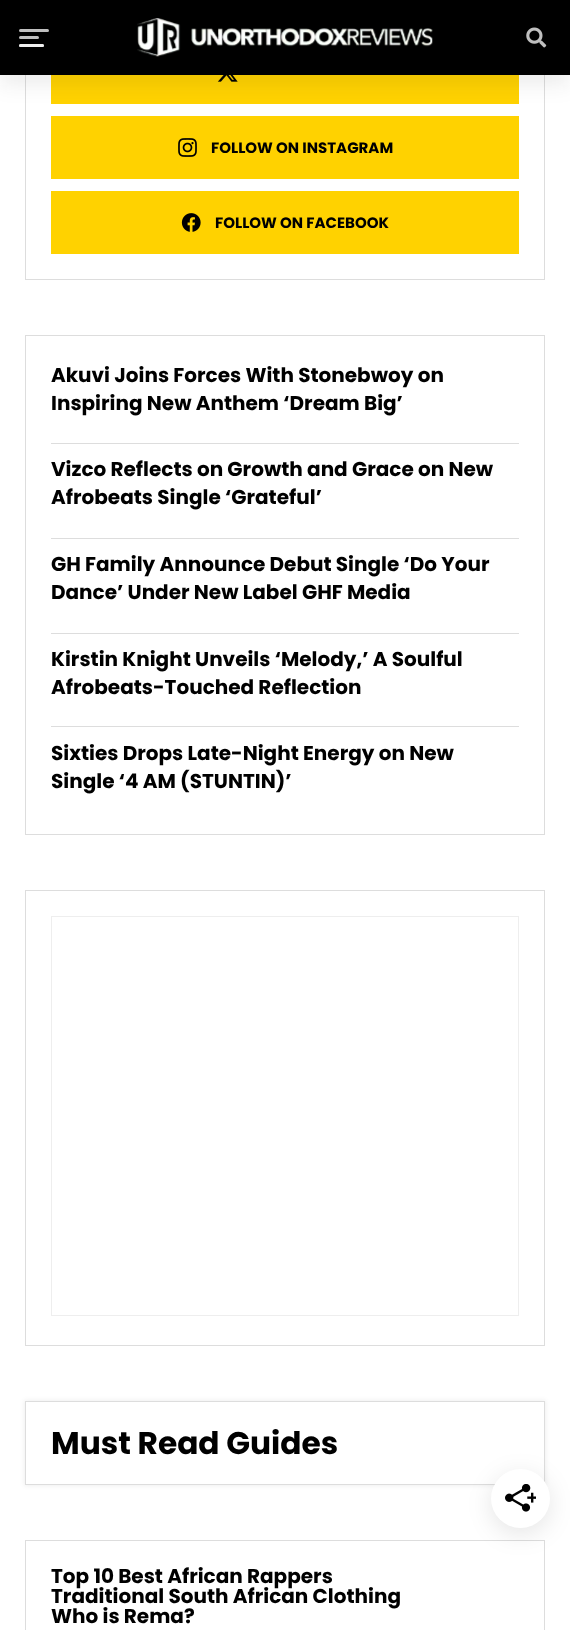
<svg xmlns="http://www.w3.org/2000/svg" width="570" height="1630" viewBox="0 0 570 1630">
  <style>
    .t1 { font: bold 15px Poppins; fill: #000; }
    .t2 { font: bold 20px Poppins; fill: #000; }
    .t3 { font: bold 31.25px Poppins; fill: #000; }
  </style>
  <rect width="100%" height="100%" fill="#fff"/>
  <rect x="25.5" y="15.5" width="519" height="264" fill="none" stroke="#ddd"/>
  <rect x="51" y="75" width="468" height="29" fill="#ffd200"/>
  <image x="217" y="75" width="21" height="7" href="images/3.png"/>
  <rect x="0" y="10" width="570" height="75" fill="#15151e14" filter="blur(10px)"/>
  <rect x="0" y="0" width="570" height="75" fill="#000"/>
  <rect x="19" y="29" width="30" height="3" rx="1.5" fill="#bfbfbf"/>
  <rect x="19" y="36" width="20" height="3" rx="1.5" fill="#bfbfbf"/>
  <rect x="19" y="44" width="25" height="3" rx="1.5" fill="#bfbfbf"/>
  <rect x="19" y="44" width="25" height="3" rx="1.5" fill="#ffffffbf"/>
  <image x="137" y="18" width="296" height="39" href="images/1.png"/>
  <image x="526" y="27" width="21" height="21" href="images/2.png"/>
  <rect x="51" y="116" width="468" height="63" fill="#ffd200"/>
  <image x="178" y="138" width="19" height="19" href="images/4.png"/>
  <text x="211" y="153" class="t1">FOLLOW ON INSTAGRAM</text>
  <rect x="51" y="191" width="468" height="63" fill="#ffd200"/>
  <image x="181" y="213" width="20" height="19" href="images/5.png"/>
  <text x="215" y="228" class="t1">FOLLOW ON FACEBOOK</text>
  <rect x="25.5" y="335.5" width="519" height="499" fill="none" stroke="#ddd"/>
  <text x="51" y="382" class="t2">Akuvi Joins Forces With Stonebwoy on</text>
  <text x="51" y="410" class="t2">Inspiring New Anthem ‘Dream Big’</text>
  <rect x="51" y="443" width="468" height="1" fill="#ddd"/>
  <text x="51" y="476" class="t2">Vizco Reflects on Growth and Grace on New</text>
  <text x="51" y="504" class="t2">Afrobeats Single ‘Grateful’</text>
  <rect x="51" y="538" width="468" height="1" fill="#ddd"/>
  <text x="51" y="571" class="t2">GH Family Announce Debut Single ‘Do Your</text>
  <text x="51" y="599" class="t2">Dance’ Under New Label GHF Media</text>
  <rect x="51" y="633" width="468" height="1" fill="#ddd"/>
  <text x="51" y="666" class="t2">Kirstin Knight Unveils ‘Melody,’ A Soulful</text>
  <text x="51" y="694" class="t2">Afrobeats-Touched Reflection</text>
  <rect x="51" y="726" width="468" height="1" fill="#ddd"/>
  <text x="51" y="760" class="t2">Sixties Drops Late-Night Energy on New</text>
  <text x="51" y="788" class="t2">Single ‘4 AM (STUNTIN)’</text>
  <rect x="25.5" y="890.5" width="519" height="455" fill="none" stroke="#ddd"/>
  <rect x="51.5" y="916.5" width="467" height="399" fill="none" stroke="#eee"/>
  <rect x="24" y="1400" width="522" height="86" fill="#0000000f" filter="blur(2px)"/>
  <rect x="25.5" y="1401.5" width="519" height="83" fill="#fff" stroke="#ddd"/>
  <text x="51" y="1454" class="t3">Must Read Guides</text>
  <rect x="25.5" y="1540.5" width="519" height="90" fill="none" stroke="#ddd"/>
  <text x="51" y="1583" class="t2">Top 10 Best African Rappers</text>
  <text x="51" y="1603" class="t2">Traditional South African Clothing</text>
  <text x="51" y="1623" class="t2">Who is Rema?</text>
  <rect x="491" y="1475" width="59" height="59" rx="29.5" fill="#0000001a" filter="blur(12.5px)"/>
  <circle cx="520.5" cy="1498.5" r="29.5" fill="#fff"/>
  <image x="505" y="1484" width="31" height="28" href="images/6.png"/>
</svg>
